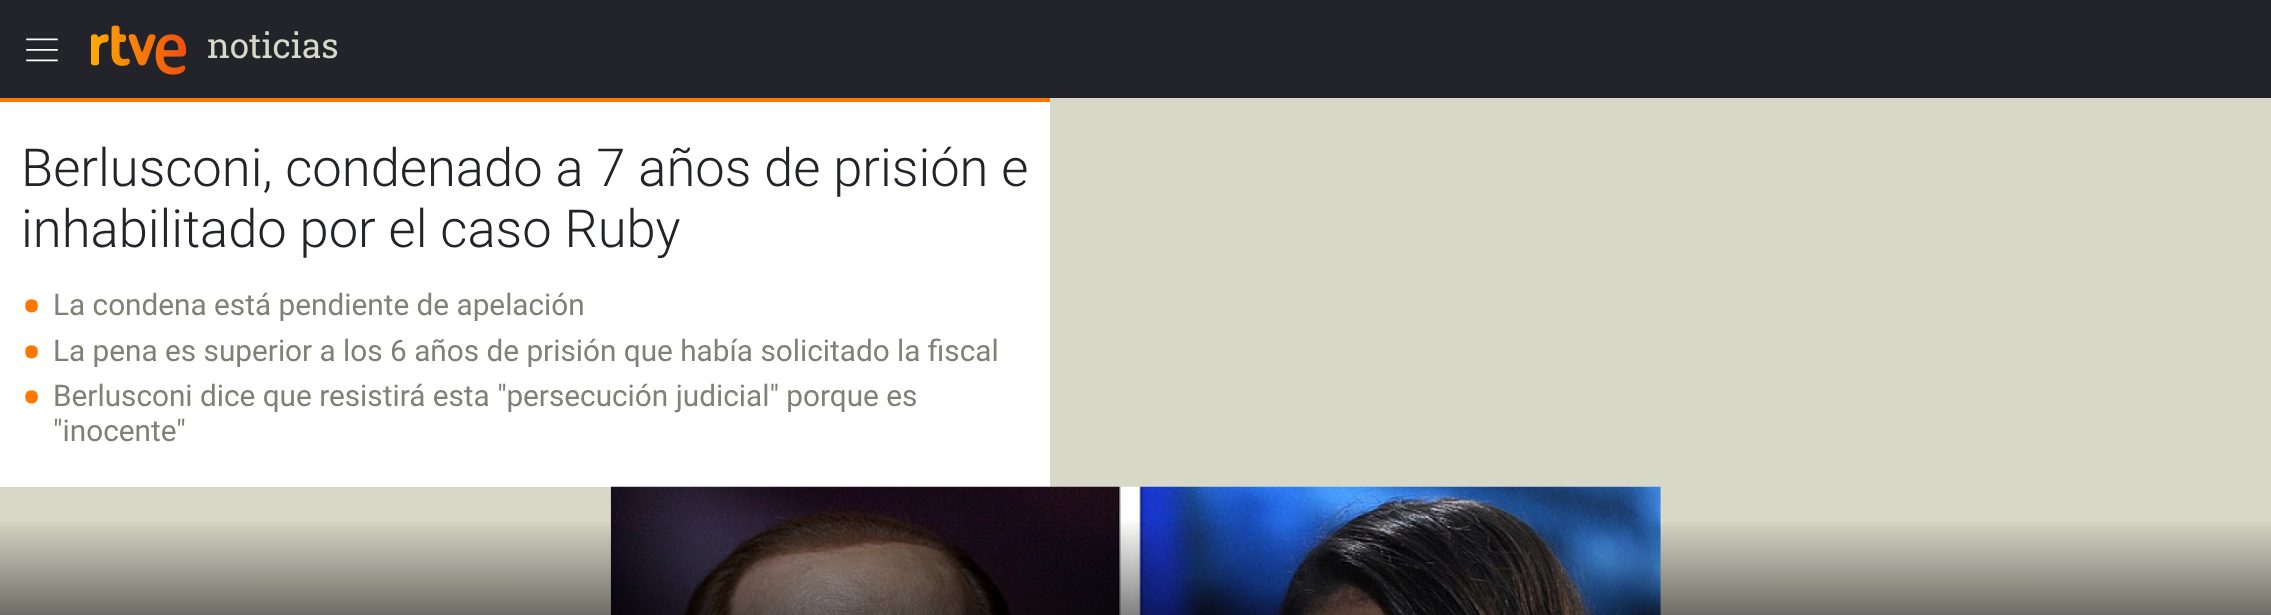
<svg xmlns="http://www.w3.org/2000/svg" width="2271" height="615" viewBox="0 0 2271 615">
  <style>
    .t1 { font: 35px Roboto Slab; fill: #d8d8c8; }
    .t2 { font: 300 52.5px Roboto; fill: #23242a; }
    .t3 { font: 63px Roboto; fill: #f70; }
    .t4 { font: 29.75px Roboto; fill: #808077; }
  </style>
  <defs>
    <linearGradient id="g1" gradientUnits="userSpaceOnUse" x1="1136" y1="518" x2="1136" y2="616"><stop offset="0" stop-color="#000" stop-opacity="0"/><stop offset="1" stop-color="#000" stop-opacity="0.5"/></linearGradient>
  </defs>
  <rect width="100%" height="100%" fill="#d8d8c8"/>
  <rect x="0" y="0" width="2271" height="98" fill="#23242a"/>
  <image x="26" y="38" width="32" height="24" href="images/1.png"/>
  <image x="91" y="25" width="96" height="50" href="images/2.png"/>
  <text x="207" y="58" class="t1">noticias</text>
  <rect x="0" y="102" width="1050" height="385" fill="#fff"/>
  <rect x="0" y="98" width="1050" height="4" fill="#f70"/>
  <text x="21" y="186" class="t2">Berlusconi, condenado a 7 años de prisión e</text>
  <text x="21" y="247" class="t2">inhabilitado por el caso Ruby</text>
  <text x="21" y="329" class="t3">•</text>
  <text x="53" y="315" class="t4">La condena está pendiente de apelación</text>
  <text x="21" y="375" class="t3">•</text>
  <text x="53" y="361" class="t4">La pena es superior a los 6 años de prisión que había solicitado la fiscal</text>
  <text x="21" y="420" class="t3">•</text>
  <text x="53" y="406" class="t4">Berlusconi dice que resistirá esta "persecución judicial" porque es</text>
  <text x="53" y="441" class="t4">"inocente"</text>
  <image x="610" y="486" width="1051" height="129" href="images/3.png"/>
  <rect x="0" y="522" width="2271" height="93" fill="url(#g1)"/>
</svg>
